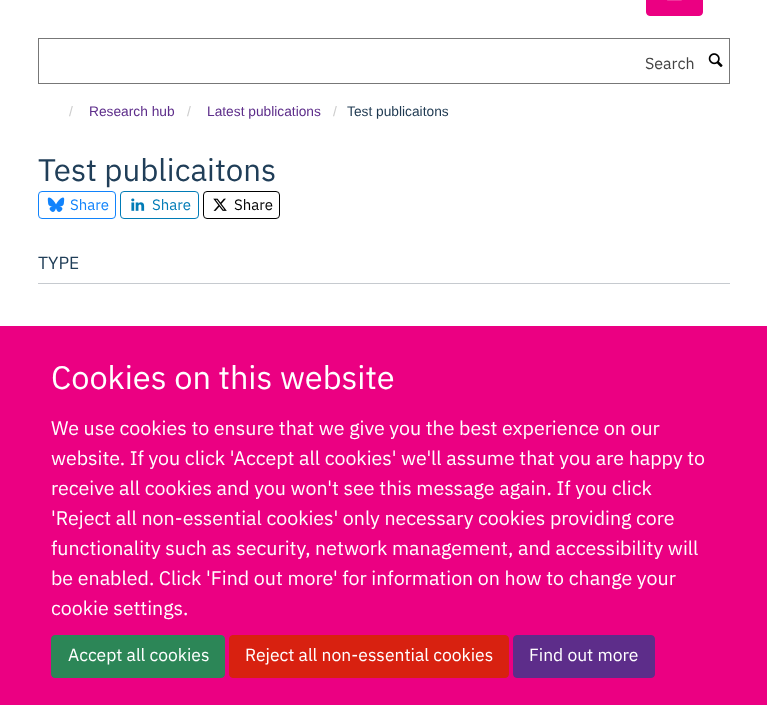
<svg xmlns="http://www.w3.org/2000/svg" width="767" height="705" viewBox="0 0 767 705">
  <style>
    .t1 { font: 16px IBM Plex Sans; fill: #444; }
    .t2 { font: 13.75px Liberation Sans; fill: #ccc; }
    .t3 { font: 13.75px Liberation Sans; fill: #5d2d8a; }
    .t4 { font: 13.75px Liberation Sans; fill: #1d3850; }
    .t5 { font: 31.25px IBM Plex Sans; fill: #203e58; }
    .t6 { font: 15px IBM Plex Sans; fill: #1183fc; }
    .t7 { font: 15px IBM Plex Sans; fill: #007bb6; }
    .t8 { font: 15px IBM Plex Sans; fill: #000; }
    .t9 { font: 17.5px IBM Plex Sans; fill: #203e58; }
    .t10 { font: 32.5px IBM Plex Sans; fill: #fff; }
    .t11 { font: 19.6px IBM Plex Sans; fill: #fff; }
    .t12 { font: 17.5px IBM Plex Sans; fill: #fff; }
  </style>
  <rect width="100%" height="100%" fill="#fff"/>
  <rect x="646.5" y="-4.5" width="56" height="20" rx="3.5" fill="#eb0082" stroke="#eb0082"/>
  <image x="667" y="0" width="15" height="1" href="images/1.png"/>
  <rect x="38.5" y="38.5" width="691" height="45" fill="none" stroke="#777"/>
  <text x="645" y="69" class="t1">Search</text>
  <image x="708" y="53" width="15" height="14" href="images/2.png"/>
  <text x="69" y="116" class="t2">/</text>
  <text x="89" y="116" class="t3">Research hub</text>
  <text x="187" y="116" class="t2">/</text>
  <text x="207" y="116" class="t3">Latest publications</text>
  <text x="333" y="116" class="t2">/</text>
  <text x="347" y="116" class="t4">Test publicaitons</text>
  <text x="38" y="181" class="t5">Test publicaitons</text>
  <rect x="38.5" y="191.5" width="77" height="27" rx="3.5" fill="none" stroke="#1183fc"/>
  <image x="47" y="197" width="18" height="15" href="images/3.png"/>
  <text x="70" y="210" class="t6">Share</text>
  <rect x="120.5" y="191.5" width="78" height="27" rx="3.5" fill="none" stroke="#007bb6"/>
  <image x="131" y="198" width="14" height="13" href="images/4.png"/>
  <text x="152" y="210" class="t7">Share</text>
  <rect x="203.5" y="191.5" width="76" height="27" rx="3.5" fill="none" stroke="#000"/>
  <image x="213" y="198" width="14" height="13" href="images/5.png"/>
  <text x="234" y="210" class="t8">Share</text>
  <rect x="38" y="283" width="692" height="1" fill="#c6cacf"/>
  <text x="38" y="269" class="t9">TYPE</text>
  <rect x="0" y="326" width="767" height="379" fill="#eb0082"/>
  <text x="51" y="389" class="t10">Cookies on this website</text>
  <text x="51" y="435" class="t11">We use cookies to ensure that we give you the best experience on our</text>
  <text x="51" y="465" class="t11">website. If you click 'Accept all cookies' we'll assume that you are happy to</text>
  <text x="51" y="495" class="t11">receive all cookies and you won't see this message again. If you click</text>
  <text x="51" y="525" class="t11">'Reject all non-essential cookies' only necessary cookies providing core</text>
  <text x="51" y="555" class="t11">functionality such as security, network management, and accessibility will</text>
  <text x="51" y="585" class="t11">be enabled. Click 'Find out more' for information on how to change your</text>
  <text x="51" y="615" class="t11">cookie settings.</text>
  <rect x="51.5" y="635.5" width="173" height="42" rx="3.5" fill="#2c8657" stroke="#2c8657"/>
  <text x="68" y="661" class="t12">Accept all cookies</text>
  <rect x="229.5" y="635.5" width="279" height="42" rx="3.5" fill="#d82110" stroke="#d82110"/>
  <text x="245" y="661" class="t12">Reject all non-essential cookies</text>
  <rect x="513.5" y="635.5" width="141" height="42" rx="3.5" fill="#5d2d8a" stroke="#5d2d8a"/>
  <text x="529" y="661" class="t12">Find out more</text>
</svg>
